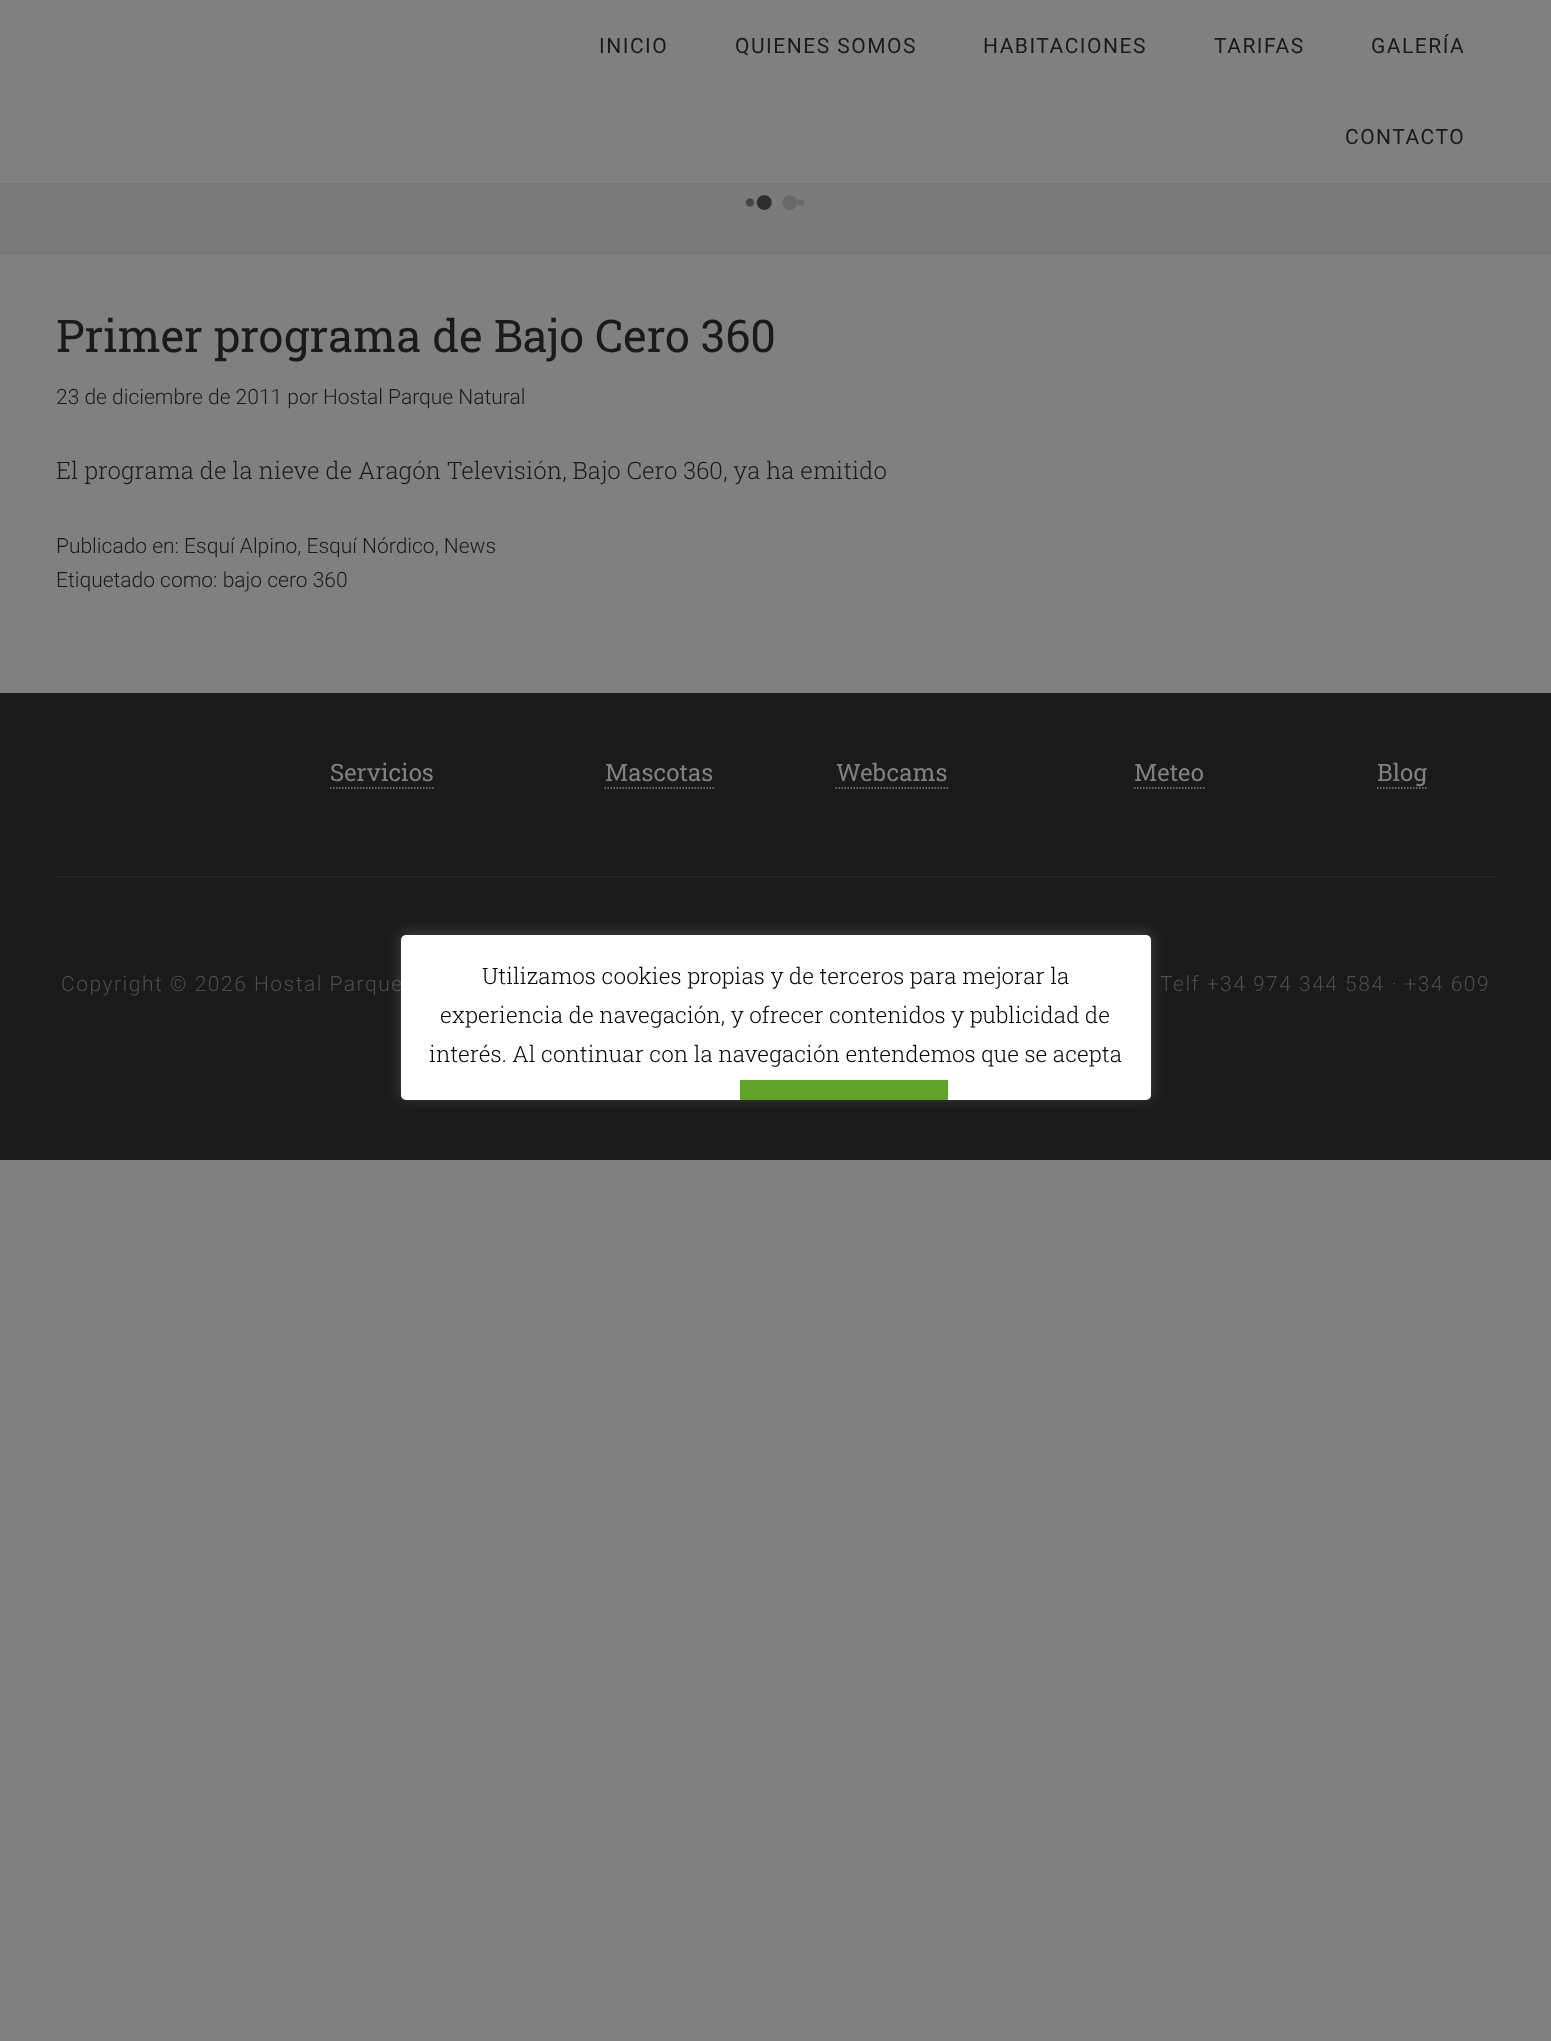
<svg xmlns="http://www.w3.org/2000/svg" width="1551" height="2041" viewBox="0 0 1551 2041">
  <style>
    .t1 { font: 21px Roboto; letter-spacing: 1.5px; fill: #1a1a1a; }
    .t2 { font: 45px Roboto Slab; fill: #1a1a1a; }
    .t3 { font: 300 21px Roboto; fill: #1a1a1a; }
    .t4 { font: 300 24px Roboto Slab; fill: #1a1a1a; }
    .t5 { font: 24px Roboto Slab; fill: #808080; }
    .t6 { font: 300 21px Roboto; letter-spacing: 1.5px; fill: #4d4d4d; }
    .t7 { font: 300 22.5px Roboto Slab; fill: #000; }
  </style>
  <rect width="100%" height="100%" fill="#808080"/>
  <rect x="0" y="183" width="1551" height="2" fill="#777"/>
  <text x="599" y="53" class="t1">INICIO</text>
  <text x="735" y="53" class="t1">QUIENES SOMOS</text>
  <text x="983" y="53" class="t1">HABITACIONES</text>
  <text x="1214" y="53" class="t1">TARIFAS</text>
  <text x="1371" y="53" class="t1">GALERÍA</text>
  <text x="1345" y="144" class="t1">CONTACTO</text>
  <rect x="0" y="185" width="1551" height="67" fill="#7b7b7b"/>
  <rect x="0" y="252" width="1551" height="2" fill="#777"/>
  <image x="745" y="194" width="60" height="17" href="images/1.png"/>
  <text x="56" y="352" class="t2">Primer programa de Bajo Cero 360</text>
  <text x="56" y="404" class="t3">23 de diciembre de 2011 por Hostal Parque Natural</text>
  <text x="56" y="479" class="t4">El programa de la nieve de Aragón Televisión, Bajo Cero 360, ya ha emitido</text>
  <text x="56" y="553" class="t3">Publicado en: Esquí Alpino, Esquí Nórdico, News</text>
  <text x="56" y="587" class="t3">Etiquetado como: bajo cero 360</text>
  <rect x="0" y="693" width="1551" height="467" fill="#1a1a1a"/>
  <rect x="56" y="876" width="1440" height="2" fill="#222"/>
  <text x="330" y="781" class="t5">Servicios</text>
  <path d="M330 788H433.5" fill="none" stroke="#808080" stroke-width="1.5" stroke-dasharray="1.5 1.5"/>
  <text x="605" y="781" class="t5">Mascotas</text>
  <path d="M604.5 788H714" fill="none" stroke="#808080" stroke-width="1.5" stroke-dasharray="1.5 1.5"/>
  <text x="836" y="781" class="t5">Webcams</text>
  <path d="M835.5 788H948" fill="none" stroke="#808080" stroke-width="1.5" stroke-dasharray="1.5 1.5"/>
  <text x="1134" y="781" class="t5">Meteo</text>
  <path d="M1134 788H1204.5" fill="none" stroke="#808080" stroke-width="1.5" stroke-dasharray="1.5 1.5"/>
  <text x="1377" y="781" class="t5">Blog</text>
  <path d="M1377 788H1426.5" fill="none" stroke="#808080" stroke-width="1.5" stroke-dasharray="1.5 1.5"/>
  <text x="61" y="991" class="t6">Copyright © 2026 Hostal Parque</text>
  <text x="1160" y="991" class="t6">Telf +34 974 344 584 · +34 609</text>
  <rect x="401" y="933" width="750" height="165" rx="5" fill="#acabab4d" filter="blur(7.5px)"/>
  <rect x="401" y="935" width="750" height="165" rx="5" fill="#fff"/>
  <text x="482" y="984" class="t7">Utilizamos cookies propias y de terceros para mejorar la</text>
  <text x="440" y="1023" class="t7">experiencia de navegación, y ofrecer contenidos y publicidad de</text>
  <text x="429" y="1062" class="t7">interés. Al continuar con la navegación entendemos que se acepta</text>
  <rect x="740" y="1080" width="208" height="20" fill="#61a229"/>
</svg>
